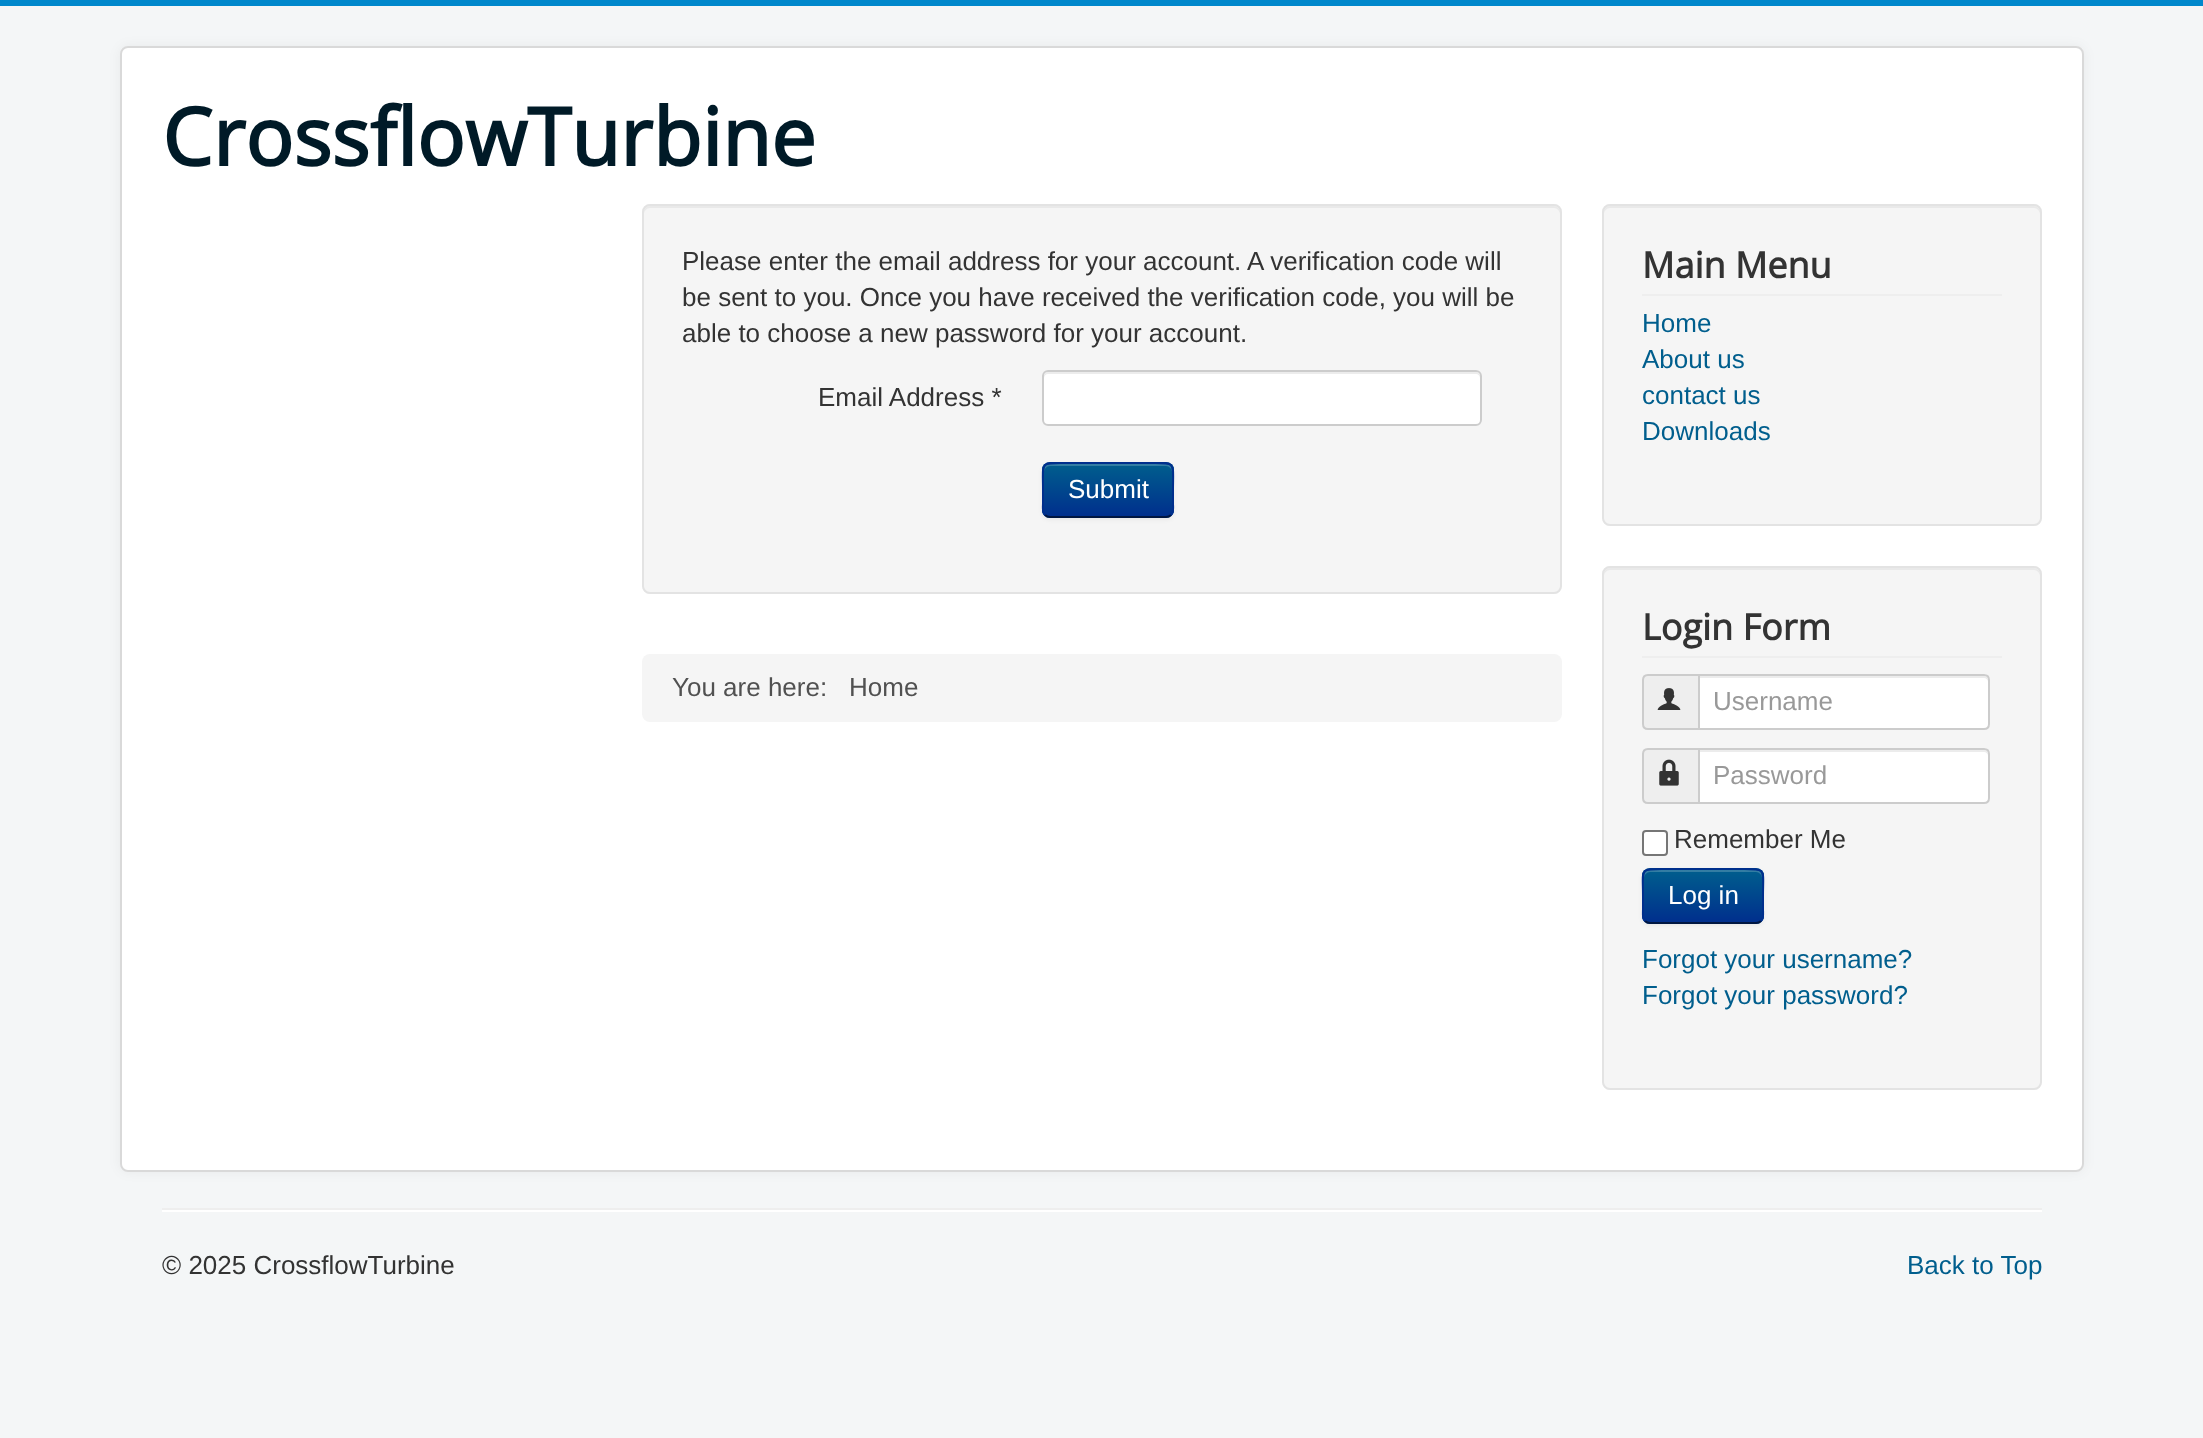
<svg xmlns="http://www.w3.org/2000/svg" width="2203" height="1438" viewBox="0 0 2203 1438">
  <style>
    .t1 { font: bold 80px Open Sans; fill: #001a27; }
    .t2 { font: 26px Liberation Sans; fill: #333; }
    .t3 { font: 26px Liberation Sans; fill: #fff; }
    .t4 { font: 26px Liberation Sans; fill: #515151; }
    .t5 { font: bold 36px Open Sans; fill: #333; }
    .t6 { font: 26px Liberation Sans; fill: #005e8d; }
    .t7 { font: 26px Liberation Sans; fill: #999; }
  </style>
  <defs>
    <clipPath id="clip1"><rect x="1042" y="462" width="132" height="56" rx="8"/></clipPath>
    <linearGradient id="g1" gradientUnits="userSpaceOnUse" x1="1108" y1="464" x2="1108" y2="516"><stop offset="0" stop-color="#005e8d"/><stop offset="1" stop-color="#002f8d"/></linearGradient>
    <clipPath id="clip2"><rect x="1642" y="868" width="122" height="56" rx="8"/></clipPath>
    <linearGradient id="g2" gradientUnits="userSpaceOnUse" x1="1703" y1="870" x2="1703" y2="922"><stop offset="0" stop-color="#005e8d"/><stop offset="1" stop-color="#002f8d"/></linearGradient>
  </defs>
  <rect width="100%" height="100%" fill="#f4f6f7"/>
  <rect x="0" y="0" width="2203" height="6" fill="#08c"/>
  <rect x="120" y="46" width="1964" height="1126" rx="8" fill="#0000000d" filter="blur(6px)"/>
  <rect x="120" y="46" width="1964" height="1126" rx="8" fill="#fff"/>
  <rect x="121" y="47" width="1962" height="1124" rx="7" fill="none" stroke="#00000026" stroke-width="2"/>
  <text x="162" y="166" class="t1">CrossflowTurbine</text>
  <rect x="642" y="204" width="920" height="390" rx="8" fill="#f5f5f5"/>
  <path d="M650 208H1554C1557 208 1560 211 1560 214V212C1560 209 1557 206 1554 206H650C647 206 644 209 644 212V214C644 211 647 208 650 208Z" fill="#e9e9e9"/>
  <rect x="643" y="205" width="918" height="388" rx="7" fill="none" stroke="#e3e3e3" stroke-width="2"/>
  <text x="682" y="270" class="t2">Please enter the email address for your account. A verification code will</text>
  <text x="682" y="306" class="t2">be sent to you. Once you have received the verification code, you will be</text>
  <text x="682" y="342" class="t2">able to choose a new password for your account.</text>
  <text x="818" y="406" class="t2">Email Address *</text>
  <rect x="1042" y="370" width="440" height="56" rx="6" fill="#fff"/>
  <path d="M1048 374H1476C1478 374 1480 376 1480 378V376C1480 374 1478 372 1476 372H1048C1046 372 1044 374 1044 376V378C1044 376 1046 374 1048 374Z" fill="#ececec"/>
  <rect x="1043" y="371" width="438" height="54" rx="5" fill="none" stroke="#ccc" stroke-width="2"/>
  <rect x="1042" y="464" width="132" height="56" rx="8" fill="#0000000d" filter="blur(2px)"/>
  <rect x="1042" y="462" width="132" height="56" rx="8" fill="#004b8d"/>
  <g clip-path="url(#clip1)">
    <rect x="1042" y="464" width="132" height="52" fill="url(#g1)"/>
  </g>
  <path d="M1050 466H1166C1169 466 1172 469 1172 472V470C1172 467 1169 464 1166 464H1050C1047 464 1044 467 1044 470V472C1044 469 1047 466 1050 466Z" fill="#ffffff33"/>
  <path d="M1171 515C1169.5 516.5 1168 517 1166 517H1050C1048 517 1046.5 516.5 1045 515" fill="none" stroke="#001641" stroke-width="2"/>
  <path d="M1045 515C1042 512 1043 507 1043 503.5V490C1043 460 1039 463 1069.5 463H1146.5C1177 463 1173 460 1173 490V503.5C1173 507 1174 512 1171 515" fill="none" stroke="#002f8d" stroke-width="2"/>
  <text x="1068" y="498" class="t3">Submit</text>
  <rect x="642" y="654" width="920" height="68" rx="8" fill="#f5f5f5"/>
  <text x="672" y="696" class="t4">You are here:</text>
  <text x="849" y="696" class="t4">Home</text>
  <rect x="1602" y="204" width="440" height="322" rx="8" fill="#f5f5f5"/>
  <path d="M1610 208H2034C2037 208 2040 211 2040 214V212C2040 209 2037 206 2034 206H1610C1607 206 1604 209 1604 212V214C1604 211 1607 208 1610 208Z" fill="#e9e9e9"/>
  <rect x="1603" y="205" width="438" height="320" rx="7" fill="none" stroke="#e3e3e3" stroke-width="2"/>
  <rect x="1642" y="294" width="360" height="2" fill="#eee"/>
  <text x="1642" y="278" class="t5">Main Menu</text>
  <text x="1642" y="332" class="t6">Home</text>
  <text x="1642" y="368" class="t6">About us</text>
  <text x="1642" y="404" class="t6">contact us</text>
  <text x="1642" y="440" class="t6">Downloads</text>
  <rect x="1602" y="566" width="440" height="524" rx="8" fill="#f5f5f5"/>
  <path d="M1610 570H2034C2037 570 2040 573 2040 576V574C2040 571 2037 568 2034 568H1610C1607 568 1604 571 1604 574V576C1604 573 1607 570 1610 570Z" fill="#e9e9e9"/>
  <rect x="1603" y="567" width="438" height="522" rx="7" fill="none" stroke="#e3e3e3" stroke-width="2"/>
  <rect x="1642" y="656" width="360" height="2" fill="#eee"/>
  <text x="1642" y="640" class="t5">Login Form</text>
  <path d="M1648 675H1699V729H1648C1645 729 1643 727 1643 724V680C1643 677 1645 675 1648 675Z" fill="#eee" stroke="#ccc" stroke-width="2"/>
  <image x="1657" y="688" width="24" height="22" href="images/1.png"/>
  <path d="M1698 674H1984C1987.5 674 1990 676.5 1990 680V724C1990 727.5 1987.5 730 1984 730H1698Z" fill="#fff"/>
  <path d="M1700 678H1984C1986 678 1988 680 1988 682C1988 679 1988 676 1984 676H1700Z" fill="#ececec"/>
  <path d="M1699 675H1984C1987 675 1989 677 1989 680V724C1989 727 1987 729 1984 729H1699Z" fill="none" stroke="#ccc" stroke-width="2"/>
  <text x="1713" y="710" class="t7">Username</text>
  <path d="M1648 749H1699V803H1648C1645 803 1643 801 1643 798V754C1643 751 1645 749 1648 749Z" fill="#eee" stroke="#ccc" stroke-width="2"/>
  <image x="1659" y="759" width="20" height="27" href="images/2.png"/>
  <path d="M1698 748H1984C1987.5 748 1990 750.5 1990 754V798C1990 801.5 1987.5 804 1984 804H1698Z" fill="#fff"/>
  <path d="M1700 752H1984C1986 752 1988 754 1988 756C1988 753 1988 750 1984 750H1700Z" fill="#ececec"/>
  <path d="M1699 749H1984C1987 749 1989 751 1989 754V798C1989 801 1987 803 1984 803H1699Z" fill="none" stroke="#ccc" stroke-width="2"/>
  <text x="1713" y="784" class="t7">Password</text>
  <rect x="1643" y="831" width="24" height="24" rx="3" fill="#fff" stroke="#767676" stroke-width="2"/>
  <text x="1674" y="848" class="t2">Remember Me</text>
  <rect x="1642" y="870" width="122" height="56" rx="8" fill="#0000000d" filter="blur(2px)"/>
  <rect x="1642" y="868" width="122" height="56" rx="8" fill="#004b8d"/>
  <g clip-path="url(#clip2)">
    <rect x="1642" y="870" width="122" height="52" fill="url(#g2)"/>
  </g>
  <path d="M1650 872H1756C1759 872 1762 875 1762 878V876C1762 873 1759 870 1756 870H1650C1647 870 1644 873 1644 876V878C1644 875 1647 872 1650 872Z" fill="#ffffff33"/>
  <path d="M1761 921C1759.5 922.5 1758 923 1756 923H1650C1648 923 1646.5 922.5 1645 921" fill="none" stroke="#001641" stroke-width="2"/>
  <path d="M1645 921C1642 918 1643 913 1643 909.5V896C1643 867 1638.5 869 1667.5 869H1738.5C1767.5 869 1763 867 1763 896V909.5C1763 913 1764 918 1761 921" fill="none" stroke="#002f8d" stroke-width="2"/>
  <text x="1668" y="904" class="t3">Log in</text>
  <text x="1642" y="968" class="t6">Forgot your username?</text>
  <text x="1642" y="1004" class="t6">Forgot your password?</text>
  <rect x="162" y="1208" width="1880" height="2" fill="#eee"/>
  <rect x="162" y="1210" width="1880" height="2" fill="#fff"/>
  <text x="162" y="1274" class="t2">© 2025 CrossflowTurbine</text>
  <text x="1907" y="1274" class="t6">Back to Top</text>
</svg>
